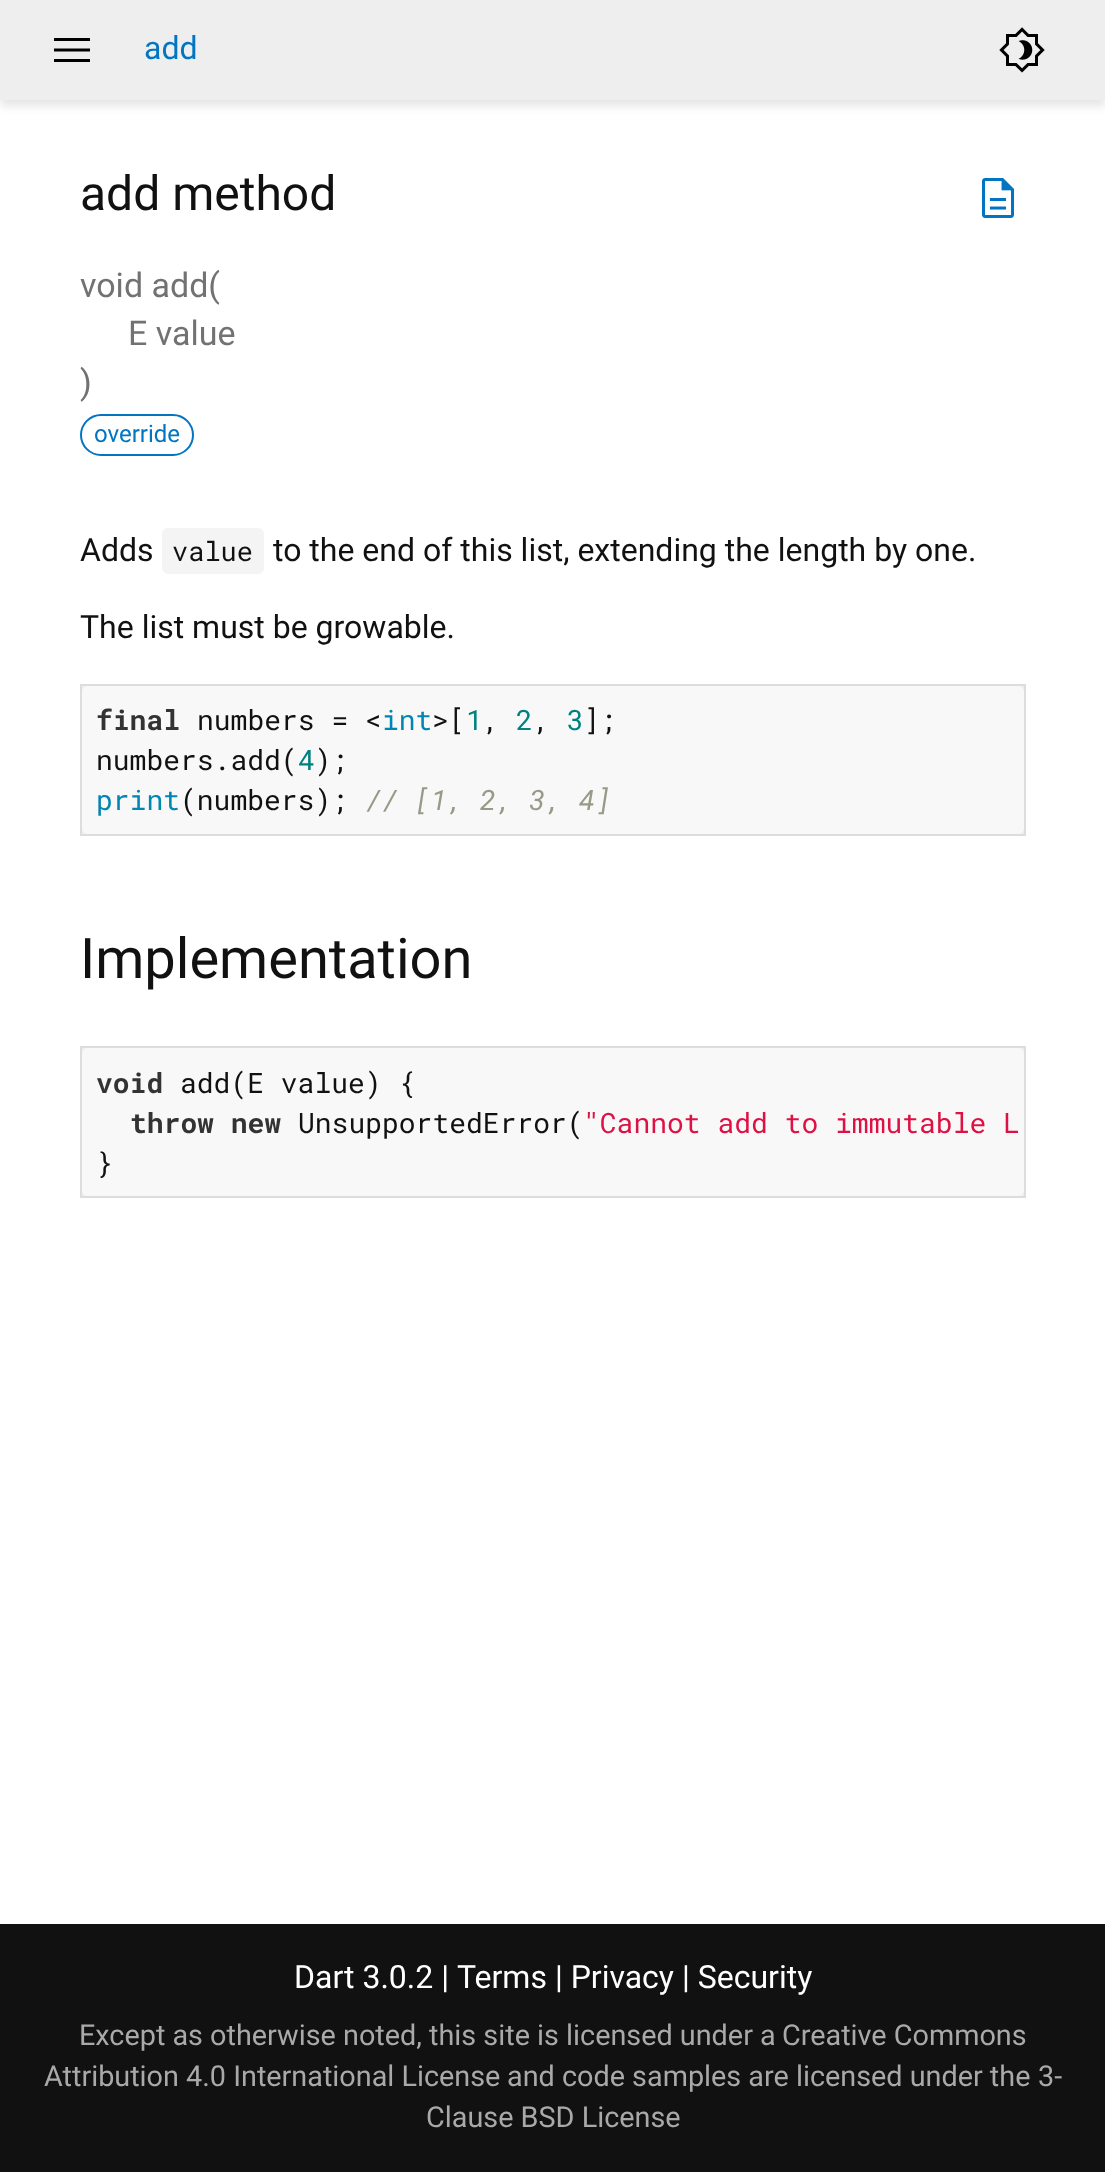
<svg xmlns="http://www.w3.org/2000/svg" width="1105" height="2172" viewBox="0 0 1105 2172">
  <style>
    .t1 { font: 32px Roboto; fill: #0175c2; }
    .t2 { font: 48px Roboto; fill: #111; }
    .t3 { font: 34px Roboto; fill: #727272; }
    .t4 { font: 24px Roboto; fill: #0175c2; }
    .t5 { font: 32px Roboto; fill: #111; }
    .t6 { font: 27px Roboto Mono; fill: #111; }
    .t7 { font: bold 28px Roboto Mono; fill: #333; }
    .t8 { font: 28px Roboto Mono; fill: #111; }
    .t9 { font: 28px Roboto Mono; fill: #0086b3; }
    .t10 { font: 28px Roboto Mono; fill: #008080; }
    .t11 { font: italic 28px Roboto Mono; fill: #998; }
    .t12 { font: 56px Roboto; fill: #111; }
    .t13 { font: 28px Roboto Mono; fill: #d14; }
    .t14 { font: 32px Roboto; fill: #fff; }
    .t15 { font: 28.8px Roboto; fill: #a9a9a9; }
  </style>
  <rect width="100%" height="100%" fill="#fff"/>
  <rect x="0" y="6" width="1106" height="100" fill="#0000001a" filter="blur(5px)"/>
  <rect x="0" y="0" width="1105" height="100" fill="#eee"/>
  <path d="M54 62V59H90V62ZM54 51.5V48.5H90V51.5ZM54 41V38H90V41Z" fill="#000"/>
  <text x="144" y="59" class="t1">add</text>
  <image x="999" y="27" width="46" height="46" href="images/1.png"/>
  <text x="80" y="210" class="t2">add method</text>
  <image x="982" y="178" width="32" height="40" href="images/2.png"/>
  <text x="80" y="297" class="t3">void add(</text>
  <text x="128" y="345" class="t3">E value</text>
  <text x="80" y="394" class="t3">)</text>
  <rect x="81" y="415" width="112" height="40" rx="20" fill="none" stroke="#0175c2" stroke-width="2"/>
  <text x="94" y="442" class="t4">override</text>
  <text x="80" y="561" class="t5">Adds</text>
  <rect x="162" y="528" width="102" height="46" rx="6" fill="#f4f4f4"/>
  <text x="172" y="561" class="t6">value</text>
  <text x="273" y="561" class="t5">to the end of this list, extending the length by one.</text>
  <text x="80" y="638" class="t5">The list must be growable.</text>
  <rect x="81" y="685" width="944" height="150" fill="#eee" stroke="#ddd" stroke-width="2"/>
  <rect x="82" y="686" width="942" height="148" rx="6" fill="#f8f8f8"/>
  <text x="96" y="730" class="t7">final</text>
  <text x="197" y="730" class="t8">numbers = &lt;</text>
  <text x="382" y="730" class="t9">int</text>
  <text x="432" y="730" class="t8">&gt;[ ,</text>
  <text x="516" y="730" class="t10">2</text>
  <text x="567" y="730" class="t10">3</text>
  <text x="583" y="730" class="t8">];</text>
  <text x="466" y="730" class="t10">1</text>
  <text x="533" y="730" class="t8">,</text>
  <text x="96" y="770" class="t8">numbers.add( );</text>
  <text x="298" y="770" class="t10">4</text>
  <text x="96" y="810" class="t9">print</text>
  <text x="180" y="810" class="t8">(numbers);</text>
  <text x="365" y="810" class="t11">// [1, 2, 3, 4]</text>
  <text x="80" y="978" class="t12">Implementation</text>
  <rect x="81" y="1047" width="944" height="150" fill="#eee" stroke="#ddd" stroke-width="2"/>
  <rect x="82" y="1048" width="942" height="148" rx="6" fill="#f8f8f8"/>
  <text x="96" y="1093" class="t7">void</text>
  <text x="180" y="1093" class="t8">add(E value) {</text>
  <text x="130" y="1133" class="t7">throw new</text>
  <text x="298" y="1133" class="t8">UnsupportedError(</text>
  <text x="583" y="1133" class="t13">"Cannot add to immutable L</text>
  <text x="96" y="1173" class="t8">}</text>
  <rect x="0" y="1924" width="1105" height="248" fill="#111"/>
  <text x="457" y="1988" class="t14">Terms | Privacy | Security</text>
  <text x="79" y="2045" class="t15">Except as otherwise noted, this site is licensed under a</text>
  <text x="782" y="2045" class="t15">Creative Commons</text>
  <text x="44" y="2086" class="t15">Attribution 4.0 International License</text>
  <text x="507" y="2086" class="t15">and code samples are licensed under the</text>
  <text x="1038" y="2086" class="t15">3-</text>
  <text x="426" y="2127" class="t15">Clause BSD License</text>
  <text x="294" y="1988" class="t14">Dart 3.0.2 |</text>
</svg>
